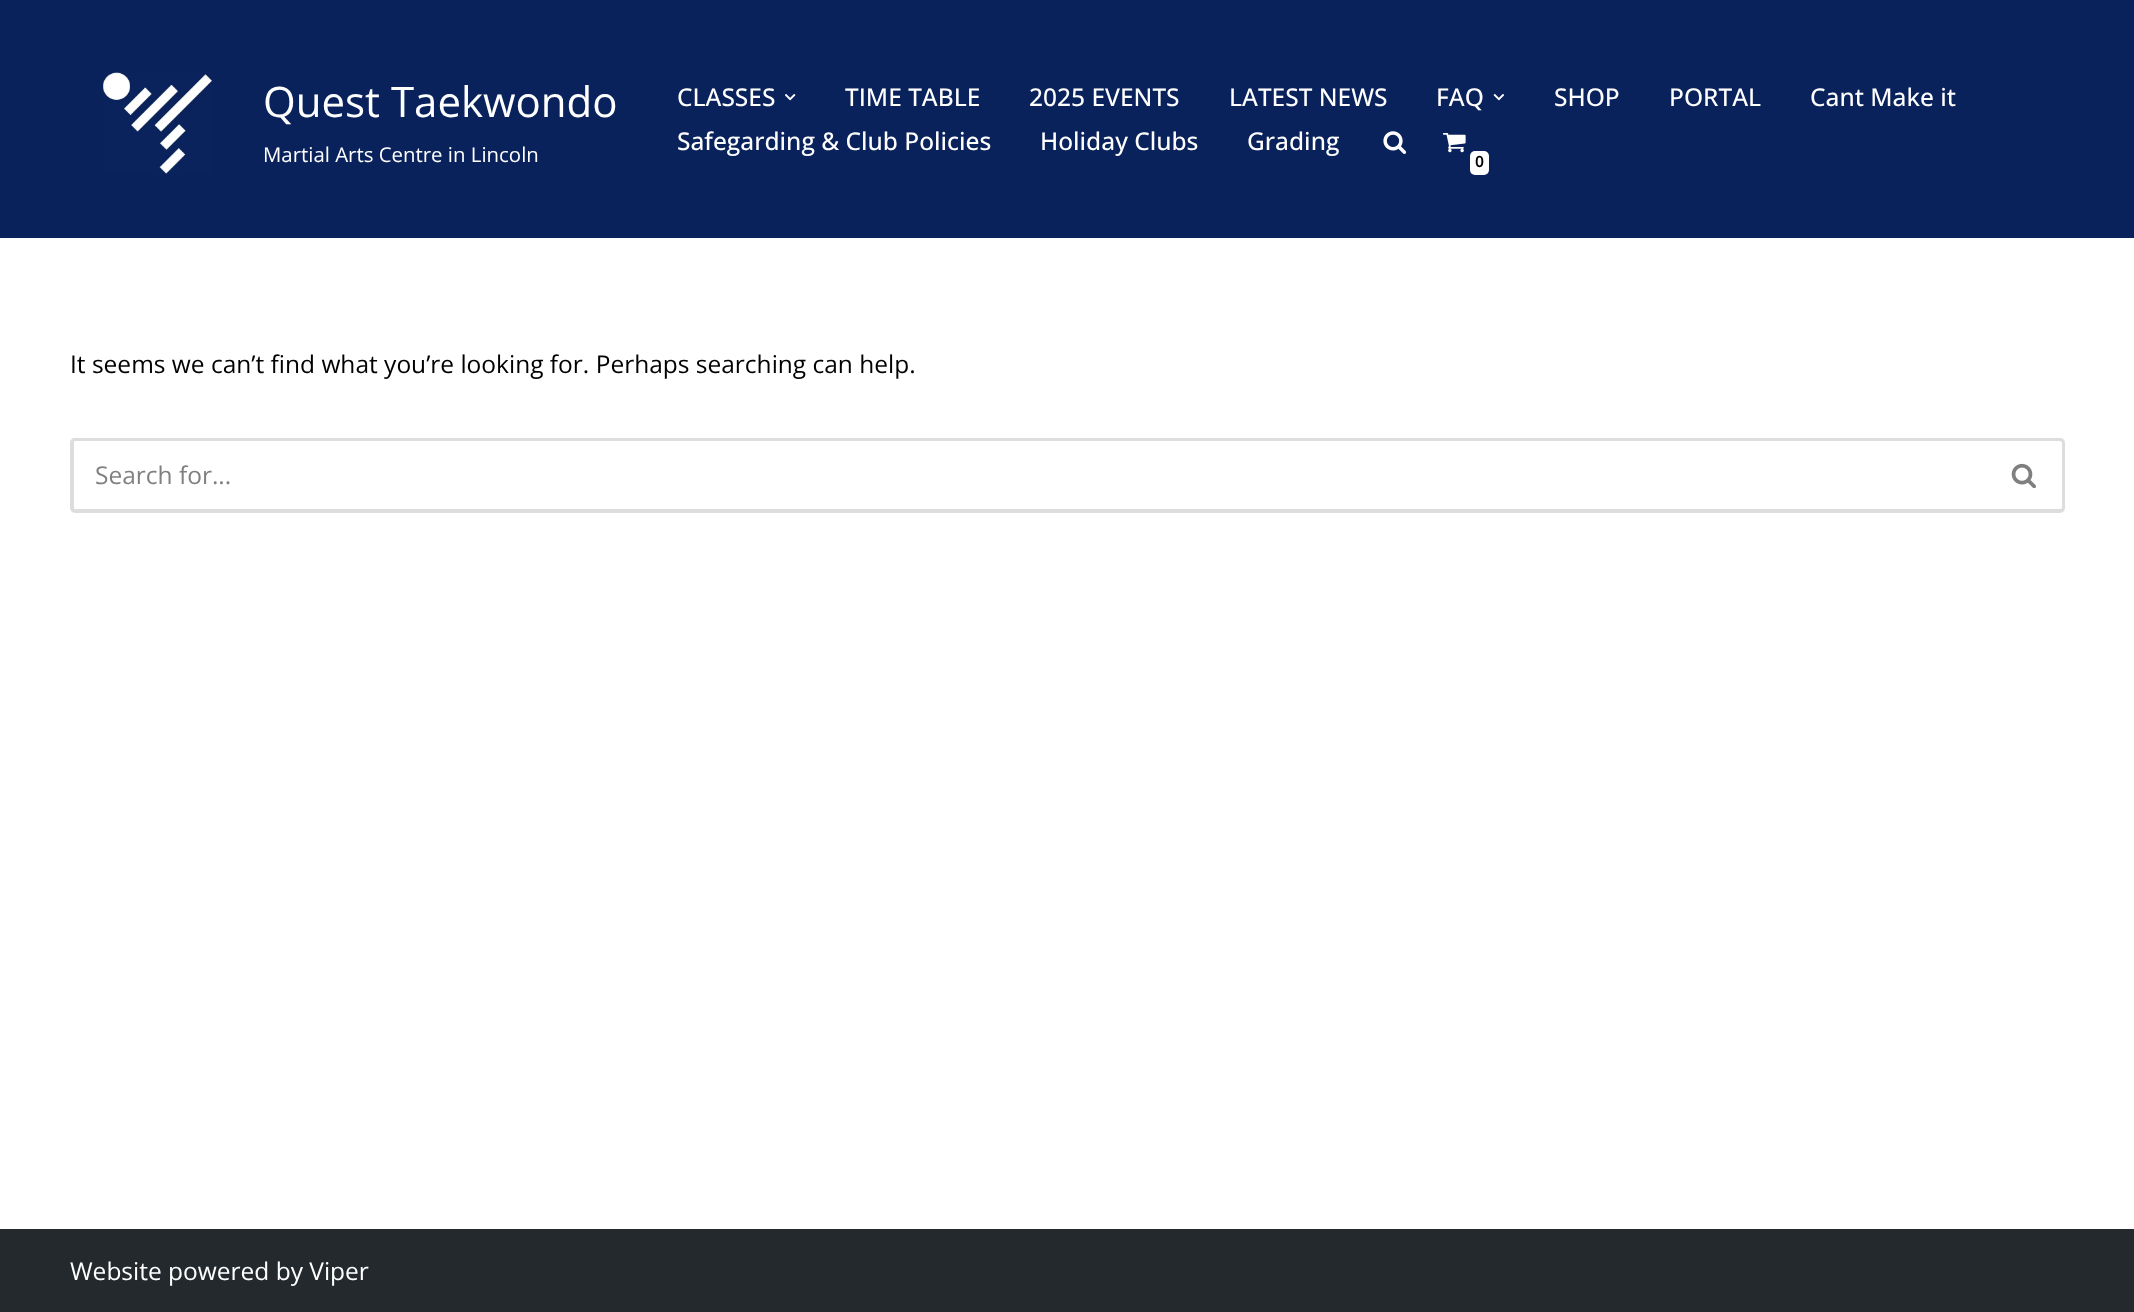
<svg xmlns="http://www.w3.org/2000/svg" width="2134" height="1312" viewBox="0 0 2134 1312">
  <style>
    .t1 { font: 42px Open Sans; fill: #fff; }
    .t2 { font: 20.4px Open Sans; fill: #fff; }
    .t3 { font: 500 24.5px Open Sans; fill: #fff; }
    .t4 { font: bold 15px Open Sans; fill: #000; }
    .t5 { font: 24.5px Open Sans; fill: #000; }
    .t6 { font: 24.5px Open Sans; fill: #808080; }
    .t7 { font: 24.5px Open Sans; fill: #fff; }
  </style>
  <rect width="100%" height="100%" fill="#fff"/>
  <rect x="0" y="0" width="2134" height="238" fill="#09225c"/>
  <image x="103" y="72" width="109" height="102" href="images/1.png"/>
  <text x="263" y="117" class="t1">Quest Taekwondo</text>
  <text x="263" y="162" class="t2">Martial Arts Centre in Lincoln</text>
  <text x="677" y="106" class="t3">CLASSES</text>
  <image x="785" y="94" width="11" height="7" href="images/2.png"/>
  <text x="845" y="106" class="t3">TIME TABLE</text>
  <text x="1029" y="106" class="t3">2025 EVENTS</text>
  <text x="1229" y="106" class="t3">LATEST NEWS</text>
  <text x="1436" y="106" class="t3">FAQ</text>
  <image x="1493" y="94" width="11" height="7" href="images/3.png"/>
  <text x="1554" y="106" class="t3">SHOP</text>
  <text x="1669" y="106" class="t3">PORTAL</text>
  <text x="1810" y="106" class="t3">Cant Make it</text>
  <text x="677" y="150" class="t3">Safegarding &amp; Club Policies</text>
  <text x="1040" y="150" class="t3">Holiday Clubs</text>
  <text x="1247" y="150" class="t3">Grading</text>
  <image x="1383" y="131" width="24" height="23" href="images/4.png"/>
  <image x="1442" y="133" width="24" height="20" href="images/5.png"/>
  <rect x="1470" y="151" width="19" height="24" rx="5" fill="#fff"/>
  <text x="1475" y="167" class="t4">0</text>
  <text x="70" y="373" class="t5">It seems we can’t find what you’re looking for. Perhaps searching can help.</text>
  <path d="M75 438H1986V513H75C72 513 70 510 70 508V443C70 440 72 438 75 438ZM75 441H1986V509H75C74 509 74 508 74 508V443C74 442 74 441 75 441Z" fill="#ddd" fill-rule="evenodd"/>
  <text x="95" y="484" class="t6">Search for...</text>
  <path d="M1986 438H2060C2063 438 2065 440 2065 443V508C2065 510 2063 513 2060 513H1986ZM1986 441H2060C2061 441 2062 442 2062 443V508C2062 508 2061 509 2060 509H1986Z" fill="#ddd" fill-rule="evenodd"/>
  <image x="2011" y="463" width="25" height="25" href="images/6.png"/>
  <rect x="0" y="1229" width="2134" height="83" fill="#24292e"/>
  <text x="70" y="1280" class="t7">Website powered by Viper</text>
</svg>
